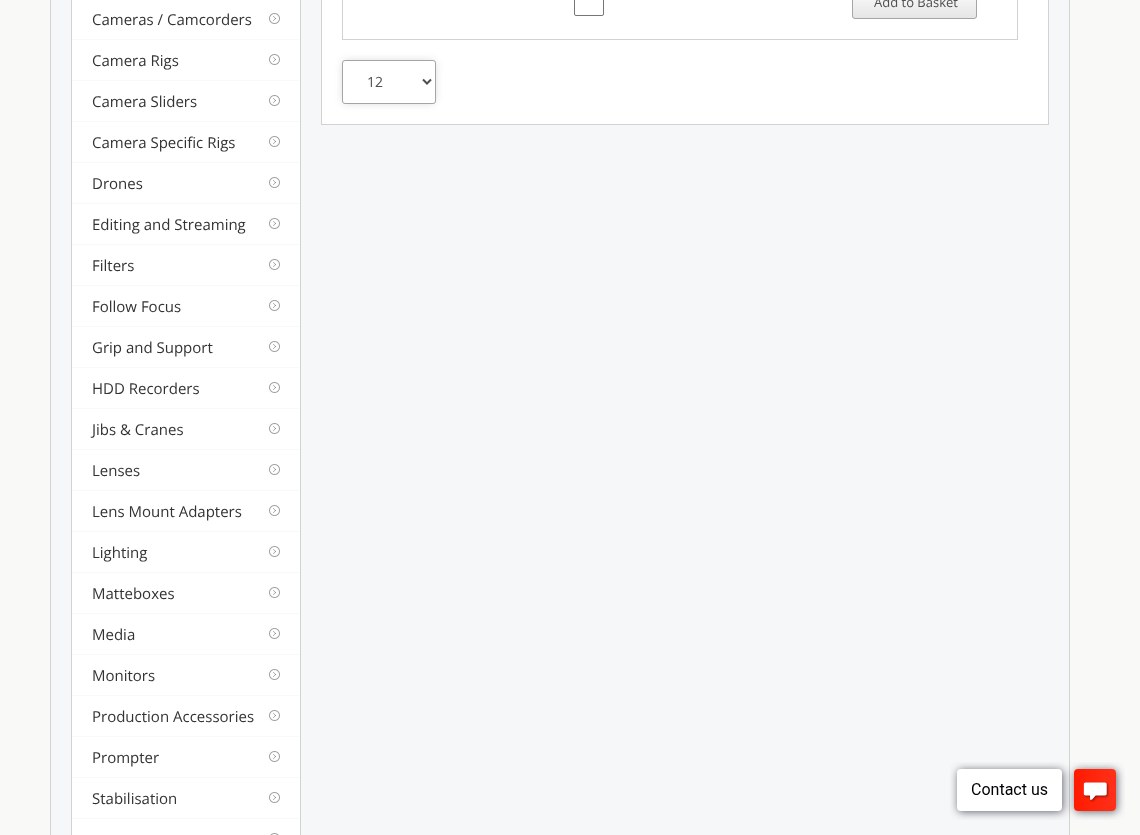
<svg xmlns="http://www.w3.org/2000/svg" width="1140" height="835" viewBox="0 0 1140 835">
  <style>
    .t1 { font: 15px Open Sans; fill: #333; }
    .t2 { font: 13px Open Sans; fill: #4f4f4f; }
    .t3 { font: 14px Open Sans; fill: #4f4f4f; }
  </style>
  <defs>
    <clipPath id="clip1"><rect x="852" y="-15" width="125" height="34" rx="3"/></clipPath>
    <linearGradient id="g1" gradientUnits="userSpaceOnUse" x1="915" y1="-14" x2="915" y2="18"><stop offset="0" stop-color="#fff"/><stop offset="1" stop-color="#e5e5e5"/></linearGradient>
  </defs>
  <rect width="100%" height="100%" fill="#f9f9f8"/>
  <rect x="50.5" y="-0.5" width="1019" height="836" fill="#f6f7f8" stroke="#d2d2d2"/>
  <rect x="72" y="0" width="228" height="835" fill="#fff"/>
  <rect x="300" y="0" width="1" height="835" fill="#d2d2d2"/>
  <rect x="71" y="0" width="1" height="835" fill="#d2d2d2"/>
  <image x="269" y="13" width="11" height="11" href="images/1.png"/>
  <rect x="72" y="39" width="228" height="1" fill="#f9f9f8"/>
  <text x="92" y="25" class="t1">Cameras / Camcorders</text>
  <image x="269" y="54" width="11" height="11" href="images/1.png"/>
  <rect x="72" y="80" width="228" height="1" fill="#f9f9f8"/>
  <text x="92" y="66" class="t1">Camera Rigs</text>
  <image x="269" y="95" width="11" height="11" href="images/1.png"/>
  <rect x="72" y="121" width="228" height="1" fill="#f9f9f8"/>
  <text x="92" y="107" class="t1">Camera Sliders</text>
  <image x="269" y="136" width="11" height="11" href="images/1.png"/>
  <rect x="72" y="162" width="228" height="1" fill="#f9f9f8"/>
  <text x="92" y="148" class="t1">Camera Specific Rigs</text>
  <image x="269" y="177" width="11" height="11" href="images/1.png"/>
  <rect x="72" y="203" width="228" height="1" fill="#f9f9f8"/>
  <text x="92" y="189" class="t1">Drones</text>
  <image x="269" y="218" width="11" height="11" href="images/1.png"/>
  <rect x="72" y="244" width="228" height="1" fill="#f9f9f8"/>
  <text x="92" y="230" class="t1">Editing and Streaming</text>
  <image x="269" y="259" width="11" height="11" href="images/1.png"/>
  <rect x="72" y="285" width="228" height="1" fill="#f9f9f8"/>
  <text x="92" y="271" class="t1">Filters</text>
  <image x="269" y="300" width="11" height="11" href="images/1.png"/>
  <rect x="72" y="326" width="228" height="1" fill="#f9f9f8"/>
  <text x="92" y="312" class="t1">Follow Focus</text>
  <image x="269" y="341" width="11" height="11" href="images/1.png"/>
  <rect x="72" y="367" width="228" height="1" fill="#f9f9f8"/>
  <text x="92" y="353" class="t1">Grip and Support</text>
  <image x="269" y="382" width="11" height="11" href="images/1.png"/>
  <rect x="72" y="408" width="228" height="1" fill="#f9f9f8"/>
  <text x="92" y="394" class="t1">HDD Recorders</text>
  <image x="269" y="423" width="11" height="11" href="images/1.png"/>
  <rect x="72" y="449" width="228" height="1" fill="#f9f9f8"/>
  <text x="92" y="435" class="t1">Jibs &amp; Cranes</text>
  <image x="269" y="464" width="11" height="11" href="images/1.png"/>
  <rect x="72" y="490" width="228" height="1" fill="#f9f9f8"/>
  <text x="92" y="476" class="t1">Lenses</text>
  <image x="269" y="505" width="11" height="11" href="images/1.png"/>
  <rect x="72" y="531" width="228" height="1" fill="#f9f9f8"/>
  <text x="92" y="517" class="t1">Lens Mount Adapters</text>
  <image x="269" y="546" width="11" height="11" href="images/1.png"/>
  <rect x="72" y="572" width="228" height="1" fill="#f9f9f8"/>
  <text x="92" y="558" class="t1">Lighting</text>
  <image x="269" y="587" width="11" height="11" href="images/1.png"/>
  <rect x="72" y="613" width="228" height="1" fill="#f9f9f8"/>
  <text x="92" y="599" class="t1">Matteboxes</text>
  <image x="269" y="628" width="11" height="11" href="images/1.png"/>
  <rect x="72" y="654" width="228" height="1" fill="#f9f9f8"/>
  <text x="92" y="640" class="t1">Media</text>
  <image x="269" y="669" width="11" height="11" href="images/1.png"/>
  <rect x="72" y="695" width="228" height="1" fill="#f9f9f8"/>
  <text x="92" y="681" class="t1">Monitors</text>
  <image x="269" y="710" width="11" height="11" href="images/1.png"/>
  <rect x="72" y="736" width="228" height="1" fill="#f9f9f8"/>
  <text x="92" y="722" class="t1">Production Accessories</text>
  <image x="269" y="751" width="11" height="11" href="images/1.png"/>
  <rect x="72" y="777" width="228" height="1" fill="#f9f9f8"/>
  <text x="92" y="763" class="t1">Prompter</text>
  <image x="269" y="792" width="11" height="11" href="images/1.png"/>
  <rect x="72" y="818" width="228" height="1" fill="#f9f9f8"/>
  <text x="92" y="804" class="t1">Stabilisation</text>
  <image x="270" y="833" width="9" height="2" href="images/2.png"/>
  <rect x="321.5" y="-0.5" width="727" height="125" fill="#fff" stroke="#d2d2d2"/>
  <rect x="342.5" y="-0.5" width="675" height="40" fill="none" stroke="#d2d2d2"/>
  <rect x="574.5" y="-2.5" width="29" height="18" rx="1.5" fill="none" stroke="#767676"/>
  <g clip-path="url(#clip1)">
    <rect x="852" y="0" width="125" height="18" fill="url(#g1)"/>
  </g>
  <rect x="852.5" y="-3.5" width="124" height="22" rx="2.5" fill="none" stroke="#a5a5a5"/>
  <text x="874" y="7" class="t2">Add to Basket</text>
  <rect x="344" y="62" width="90" height="40" rx="1" fill="#00000033" filter="blur(5px)"/>
  <rect x="342.5" y="60.5" width="93" height="43" rx="2.5" fill="#fff" stroke="#a5a5a5"/>
  <path d="M423 79.5L427 83.5L431 79.5" fill="none" stroke="#4f4f4f" stroke-width="2"/>
  <text x="367" y="87" class="t3">12</text>
  <image x="950" y="762" width="175" height="58" href="images/3.png"/>
</svg>
